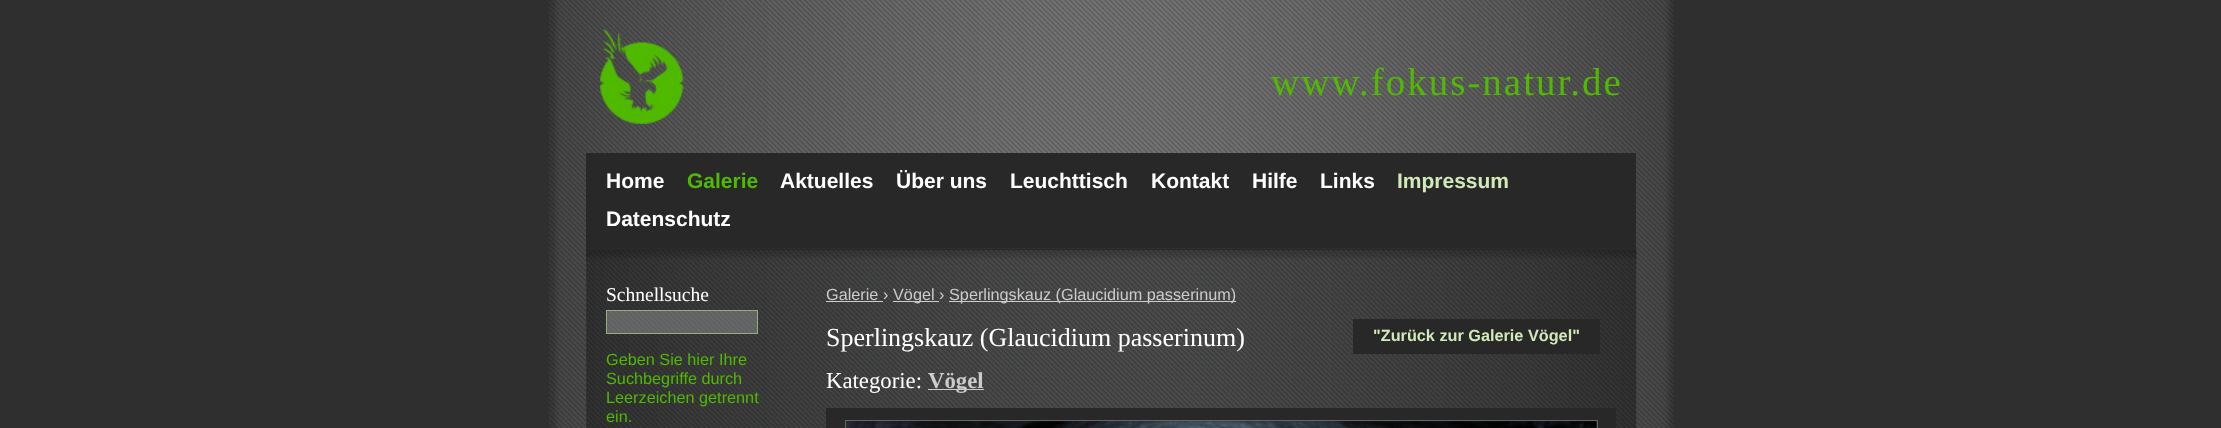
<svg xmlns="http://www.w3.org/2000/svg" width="2221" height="428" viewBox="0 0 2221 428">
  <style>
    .t1 { font: 39px Liberation Serif; letter-spacing: 2px; fill: #4fba00; }
    .t2 { font: bold 21px Liberation Sans; fill: #fff; }
    .t3 { font: bold 21px Liberation Sans; fill: #4fba00; }
    .t4 { font: bold 21px Liberation Sans; fill: #d1eab9; }
    .t5 { font: 19.5px Liberation Serif; fill: #fff; }
    .t6 { font: 16.25px Liberation Sans; fill: #4fba00; }
    .t7 { font: 16.25px Liberation Sans; fill: #ccc; }
    .t8 { font: 26px Liberation Serif; fill: #fff; }
    .t9 { font: 22.75px Liberation Serif; fill: #fff; }
    .t10 { font: bold 22.75px Liberation Serif; fill: #ccc; }
    .t11 { font: bold 16.25px Liberation Sans; fill: #d1eab9; }
  </style>
  <rect width="100%" height="100%" fill="#302f2f"/>
  <image x="549" y="0" width="1125" height="428" href="images/1.png"/>
  <image x="600" y="28" width="84" height="96" href="images/2.png"/>
  <text x="1271" y="95" class="t1">www.fokus-natur.de</text>
  <rect x="586" y="153" width="1050" height="96" fill="#282828"/>
  <text x="606" y="188" class="t2">Home</text>
  <text x="687" y="188" class="t3">Galerie</text>
  <text x="780" y="188" class="t2">Aktuelles</text>
  <text x="896" y="188" class="t2">Über uns</text>
  <text x="1010" y="188" class="t2">Leuchttisch</text>
  <text x="1151" y="188" class="t2">Kontakt</text>
  <text x="1252" y="188" class="t2">Hilfe</text>
  <text x="1320" y="188" class="t2">Links</text>
  <text x="1397" y="188" class="t4">Impressum</text>
  <text x="606" y="226" class="t2">Datenschutz</text>
  <image x="586" y="248" width="1051" height="180" href="images/3.png"/>
  <image x="586" y="249" width="1051" height="15" href="images/4.png"/>
  <text x="606" y="301" class="t5">Schnellsuche</text>
  <image x="607" y="311" width="150" height="22" href="images/5.png"/>
  <rect x="606.5" y="310.5" width="151" height="23" fill="none" stroke="#95af77"/>
  <text x="606" y="365" class="t6">Geben Sie hier Ihre</text>
  <text x="606" y="384" class="t6">Suchbegriffe durch</text>
  <text x="606" y="403" class="t6">Leerzeichen getrennt</text>
  <text x="606" y="422" class="t6">ein.</text>
  <text x="826" y="300" class="t7">Galerie ›</text>
  <rect x="826" y="301" width="57" height="1" fill="#ccc"/>
  <rect x="893" y="301" width="46" height="1" fill="#ccc"/>
  <text x="893" y="300" class="t7">Vögel ›</text>
  <rect x="949" y="301" width="287" height="1" fill="#ccc"/>
  <text x="949" y="300" class="t7">Sperlingskauz (Glaucidium passerinum)</text>
  <text x="826" y="346" class="t8">Sperlingskauz (Glaucidium passerinum)</text>
  <text x="826" y="388" class="t9">Kategorie:</text>
  <rect x="928" y="389" width="56" height="1" fill="#ccc"/>
  <text x="928" y="388" class="t10">Vögel</text>
  <rect x="826" y="408" width="790" height="20" fill="#282828"/>
  <rect x="845.5" y="420.5" width="752" height="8" fill="none" stroke="#666"/>
  <image x="846" y="421" width="751" height="7" href="images/6.png"/>
  <rect x="1353" y="319" width="247" height="35" fill="#282828"/>
  <text x="1373" y="341" class="t11">"Zurück zur Galerie Vögel"</text>
</svg>
